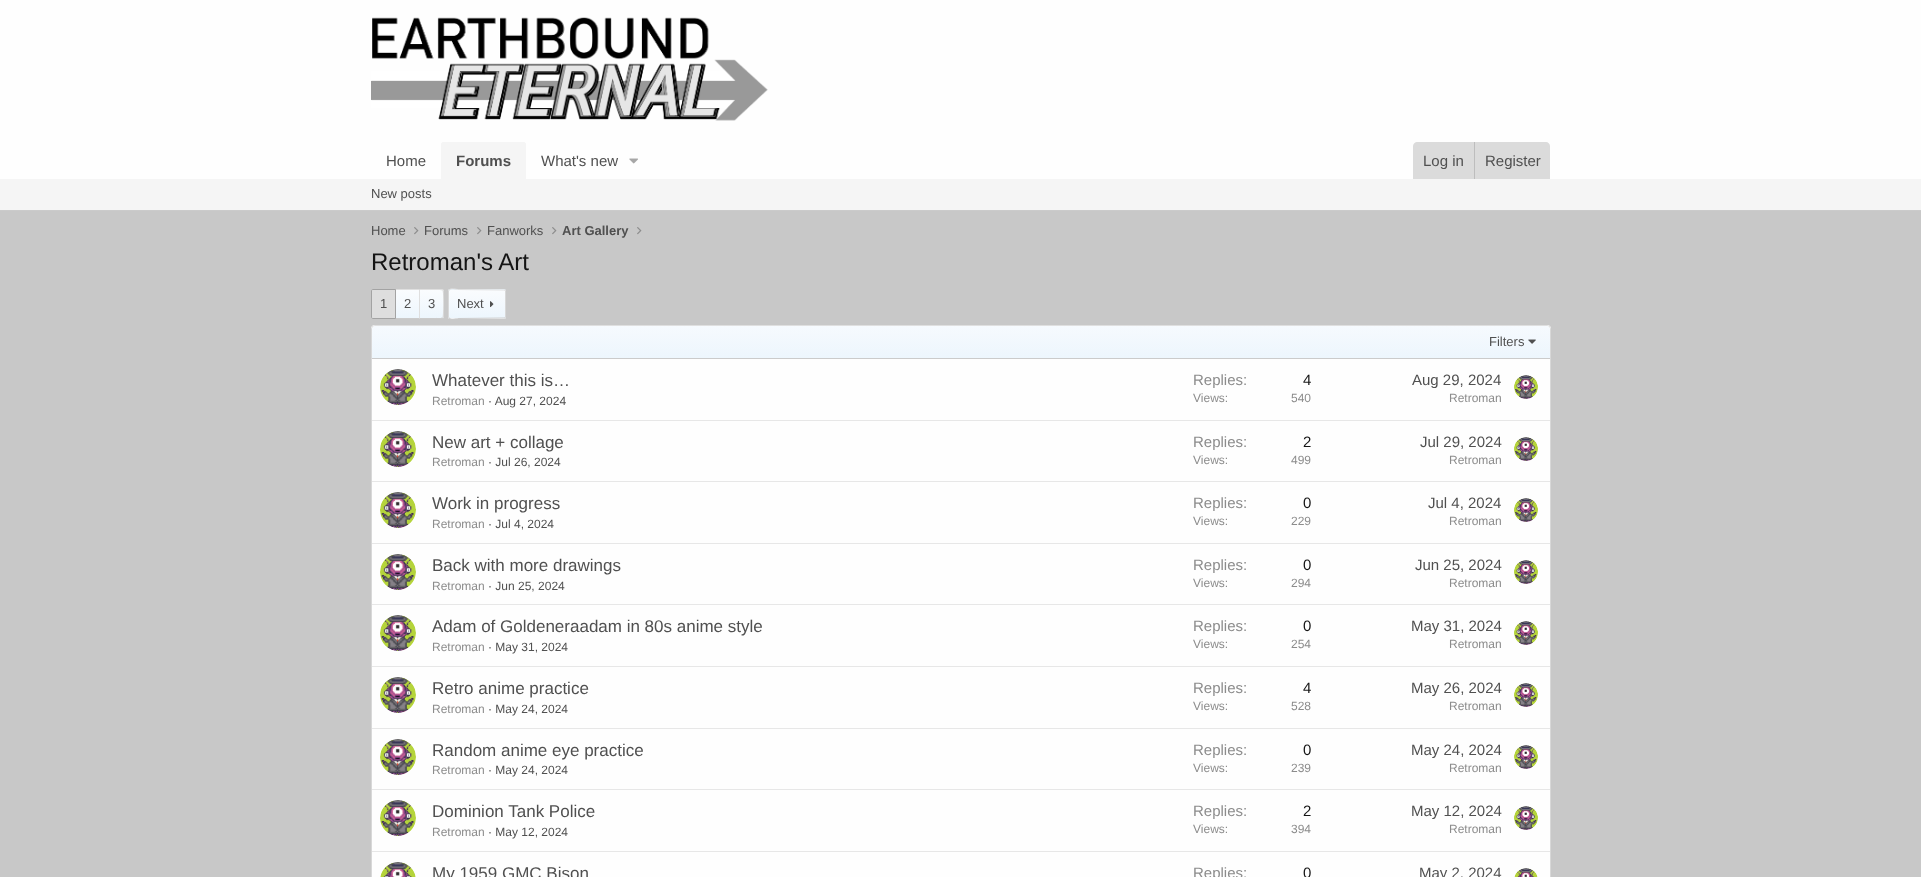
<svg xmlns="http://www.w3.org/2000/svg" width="1921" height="877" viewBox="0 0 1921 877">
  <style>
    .t1 { font: 15px Liberation Sans; fill: #505050; }
    .t2 { font: bold 15px Liberation Sans; fill: #505050; }
    .t3 { font: 13px Liberation Sans; fill: #505050; }
    .t4 { font: bold 13px Liberation Sans; fill: #505050; }
    .t5 { font: 24px Liberation Sans; fill: #141414; }
    .t6 { font: 17px Liberation Sans; fill: #505050; }
    .t7 { font: 12px Liberation Sans; fill: #8c8c8c; }
    .t8 { font: 12px Liberation Sans; fill: #505050; }
    .t9 { font: 15px Liberation Sans; fill: #8c8c8c; }
    .t10 { font: 15px Liberation Sans; fill: #141414; }
  </style>
  <defs>
    <linearGradient id="g1" gradientUnits="userSpaceOnUse" x1="408" y1="318" x2="408" y2="290"><stop offset="0" stop-color="#edf6fd"/><stop offset="1" stop-color="#fafcfe"/></linearGradient>
    <linearGradient id="g2" gradientUnits="userSpaceOnUse" x1="432" y1="318" x2="432" y2="290"><stop offset="0" stop-color="#edf6fd"/><stop offset="1" stop-color="#fafcfe"/></linearGradient>
    <clipPath id="clip1"><rect x="448" y="289" width="58" height="30" rx="2"/></clipPath>
    <linearGradient id="g3" gradientUnits="userSpaceOnUse" x1="477" y1="290" x2="477" y2="262"><stop offset="0" stop-color="#edf6fd"/><stop offset="1" stop-color="#fafcfe"/></linearGradient>
    <linearGradient id="g4" gradientUnits="userSpaceOnUse" x1="477" y1="318" x2="477" y2="290"><stop offset="0" stop-color="#edf6fd"/><stop offset="1" stop-color="#fafcfe"/></linearGradient>
    <linearGradient id="g5" gradientUnits="userSpaceOnUse" x1="477" y1="346" x2="477" y2="318"><stop offset="0" stop-color="#edf6fd"/><stop offset="1" stop-color="#fafcfe"/></linearGradient>
    <linearGradient id="g6" gradientUnits="userSpaceOnUse" x1="961" y1="358" x2="961" y2="326"><stop offset="0" stop-color="#edf6fd"/><stop offset="1" stop-color="#f6fafe"/></linearGradient>
  </defs>
  <rect width="100%" height="100%" fill="#c8c8c8"/>
  <rect x="0" y="0" width="1921" height="179" fill="#fefefe"/>
  <image x="371" y="17" width="397" height="104" href="images/1.png"/>
  <text x="386" y="166" class="t1">Home</text>
  <path d="M443 142H524C525 142 526 143 526 144V179H441V144C441 143 442 142 443 142Z" fill="#f5f5f5"/>
  <text x="456" y="166" class="t2">Forums</text>
  <text x="541" y="166" class="t1">What's new</text>
  <image x="629" y="158" width="9" height="6" href="images/2.png"/>
  <path d="M1417 142H1546C1548 142 1550 144 1550 146V179H1413V146C1413 144 1415 142 1417 142Z" fill="#dbdbdb"/>
  <text x="1423" y="166" class="t1">Log in</text>
  <rect x="1474" y="142" width="1" height="37" fill="#bdbdbd"/>
  <text x="1485" y="166" class="t1">Register</text>
  <rect x="0" y="179" width="1921" height="31" fill="#f5f5f5"/>
  <rect x="0" y="210" width="1921" height="1" fill="#cbcbcb"/>
  <text x="371" y="198" class="t3">New posts</text>
  <text x="371" y="235" class="t3">Home</text>
  <image x="414" y="227" width="5" height="8" href="images/3.png"/>
  <text x="424" y="235" class="t3">Forums</text>
  <image x="477" y="227" width="5" height="8" href="images/3.png"/>
  <text x="487" y="235" class="t3">Fanworks</text>
  <image x="552" y="227" width="5" height="8" href="images/3.png"/>
  <text x="562" y="235" class="t4">Art Gallery</text>
  <image x="637" y="227" width="5" height="8" href="images/3.png"/>
  <text x="371" y="270" class="t5">Retroman's Art</text>
  <path d="M373 289.5H395.5V318.5H373C372 318.5 371.5 318 371.5 317V291C371.5 290 372 289.5 373 289.5Z" fill="#dedede" stroke="#a3a3a3"/>
  <text x="380" y="308" class="t3">1</text>
  <rect x="396" y="290" width="23" height="28" fill="url(#g1)"/>
  <rect x="396" y="289" width="23" height="1" fill="#dfdfdf"/>
  <rect x="396" y="318" width="23" height="1" fill="#cbcbcb"/>
  <text x="404" y="308" class="t3">2</text>
  <rect x="420" y="290" width="24" height="28" fill="url(#g2)"/>
  <path d="M419 289L420 290C422.5 290 442 289.5 442.5 290.5L443.5 289.5L442 289Z" fill="#dfdfdf"/>
  <path d="M444 317V291L443.5 289.5L442.5 290.5C443.5 291 443.5 317 442.5 317.5L443.5 318.5Z" fill="#d8d8d8"/>
  <path d="M442 319L443.5 318.5L442.5 317.5C442 318.5 422.5 318 420 318L419 319Z" fill="#cbcbcb"/>
  <path d="M420 290L419 289V319L420 318Z" fill="#dfdfdf"/>
  <text x="428" y="308" class="t3">3</text>
  <g clip-path="url(#clip1)">
    <rect x="448" y="289" width="58" height="1" fill="url(#g3)"/>
    <rect x="448" y="290" width="58" height="28" fill="url(#g4)"/>
    <rect x="448" y="318" width="58" height="1" fill="url(#g5)"/>
  </g>
  <path d="M449 290C451.5 287.5 455.5 289.5 459 289.5L505 290" fill="none" stroke="#dfdfdf"/>
  <path d="M505 290L505.5 291V317L505 318" fill="none" stroke="#d8d8d8"/>
  <path d="M505 318L459 318.5C455.5 318.5 451.5 320.5 449 318" fill="none" stroke="#cbcbcb"/>
  <path d="M449 318L448.5 317V291L449 290" fill="none" stroke="#d8d8d8"/>
  <text x="457" y="308" class="t3">Next</text>
  <image x="490" y="301" width="4" height="7" href="images/4.png"/>
  <rect x="371" y="325" width="1180" height="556" rx="4" fill="#fefefe"/>
  <path d="M372.5 326.5L375 325.5H1547L1549.5 326.5" fill="none" stroke="#dfdfdf"/>
  <path d="M1549.5 326.5L1550.5 329V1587L1549.5 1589.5" fill="none" stroke="#d8d8d8"/>
  <path d="M372.5 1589.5L371.5 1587V329L372.5 326.5" fill="none" stroke="#d8d8d8"/>
  <path d="M375 326H1547C1548.5 326 1550 327.5 1550 329V358H372V329C372 327.5 373.5 326 375 326Z" fill="url(#g6)"/>
  <rect x="372" y="358" width="1178" height="1" fill="#cbcbcb"/>
  <text x="1489" y="346" class="t3">Filters</text>
  <image x="1528" y="339" width="8" height="5" href="images/5.png"/>
  <image x="380" y="369" width="36" height="36" href="images/6.png"/>
  <text x="432" y="386" class="t6">Whatever this is…</text>
  <text x="432" y="405" class="t7">Retroman</text>
  <text x="488" y="405" class="t8">· Aug 27, 2024</text>
  <text x="1193" y="385" class="t9">Replies:</text>
  <text x="1303" y="385" class="t10">4</text>
  <text x="1193" y="402" class="t7">Views:</text>
  <text x="1291" y="402" class="t7">540</text>
  <text x="1412" y="385" class="t1">Aug 29, 2024</text>
  <text x="1449" y="402" class="t7">Retroman</text>
  <image x="1514" y="375" width="24" height="24" href="images/7.png"/>
  <rect x="372" y="420" width="1178" height="1" fill="#e7e7e7"/>
  <image x="380" y="431" width="36" height="36" href="images/6.png"/>
  <text x="432" y="448" class="t6">New art + collage</text>
  <text x="432" y="466" class="t7">Retroman</text>
  <text x="488" y="466" class="t8">· Jul 26, 2024</text>
  <text x="1193" y="447" class="t9">Replies:</text>
  <text x="1303" y="447" class="t10">2</text>
  <text x="1193" y="464" class="t7">Views:</text>
  <text x="1291" y="464" class="t7">499</text>
  <text x="1420" y="447" class="t1">Jul 29, 2024</text>
  <text x="1449" y="464" class="t7">Retroman</text>
  <image x="1514" y="437" width="24" height="24" href="images/7.png"/>
  <rect x="372" y="481" width="1178" height="1" fill="#e7e7e7"/>
  <image x="380" y="492" width="36" height="36" href="images/8.png"/>
  <text x="432" y="509" class="t6">Work in progress</text>
  <text x="432" y="528" class="t7">Retroman</text>
  <text x="488" y="528" class="t8">· Jul 4, 2024</text>
  <text x="1193" y="508" class="t9">Replies:</text>
  <text x="1303" y="508" class="t10">0</text>
  <text x="1193" y="525" class="t7">Views:</text>
  <text x="1291" y="525" class="t7">229</text>
  <text x="1428" y="508" class="t1">Jul 4, 2024</text>
  <text x="1449" y="525" class="t7">Retroman</text>
  <image x="1514" y="498" width="24" height="24" href="images/9.png"/>
  <rect x="372" y="543" width="1178" height="1" fill="#e7e7e7"/>
  <image x="380" y="554" width="36" height="36" href="images/6.png"/>
  <text x="432" y="571" class="t6">Back with more drawings</text>
  <text x="432" y="590" class="t7">Retroman</text>
  <text x="488" y="590" class="t8">· Jun 25, 2024</text>
  <text x="1193" y="570" class="t9">Replies:</text>
  <text x="1303" y="570" class="t10">0</text>
  <text x="1193" y="587" class="t7">Views:</text>
  <text x="1291" y="587" class="t7">294</text>
  <text x="1415" y="570" class="t1">Jun 25, 2024</text>
  <text x="1449" y="587" class="t7">Retroman</text>
  <image x="1514" y="560" width="24" height="24" href="images/7.png"/>
  <rect x="372" y="604" width="1178" height="1" fill="#e7e7e7"/>
  <image x="380" y="615" width="36" height="36" href="images/6.png"/>
  <text x="432" y="632" class="t6">Adam of Goldeneraadam in 80s anime style</text>
  <text x="432" y="651" class="t7">Retroman</text>
  <text x="488" y="651" class="t8">· May 31, 2024</text>
  <text x="1193" y="631" class="t9">Replies:</text>
  <text x="1303" y="631" class="t10">0</text>
  <text x="1193" y="648" class="t7">Views:</text>
  <text x="1291" y="648" class="t7">254</text>
  <text x="1411" y="631" class="t1">May 31, 2024</text>
  <text x="1449" y="648" class="t7">Retroman</text>
  <image x="1514" y="621" width="24" height="24" href="images/7.png"/>
  <rect x="372" y="666" width="1178" height="1" fill="#e7e7e7"/>
  <image x="380" y="677" width="36" height="36" href="images/6.png"/>
  <text x="432" y="694" class="t6">Retro anime practice</text>
  <text x="432" y="713" class="t7">Retroman</text>
  <text x="488" y="713" class="t8">· May 24, 2024</text>
  <text x="1193" y="693" class="t9">Replies:</text>
  <text x="1303" y="693" class="t10">4</text>
  <text x="1193" y="710" class="t7">Views:</text>
  <text x="1291" y="710" class="t7">528</text>
  <text x="1411" y="693" class="t1">May 26, 2024</text>
  <text x="1449" y="710" class="t7">Retroman</text>
  <image x="1514" y="683" width="24" height="24" href="images/7.png"/>
  <rect x="372" y="728" width="1178" height="1" fill="#e7e7e7"/>
  <image x="380" y="739" width="36" height="36" href="images/10.png"/>
  <text x="432" y="756" class="t6">Random anime eye practice</text>
  <text x="432" y="774" class="t7">Retroman</text>
  <text x="488" y="774" class="t8">· May 24, 2024</text>
  <text x="1193" y="755" class="t9">Replies:</text>
  <text x="1303" y="755" class="t10">0</text>
  <text x="1193" y="772" class="t7">Views:</text>
  <text x="1291" y="772" class="t7">239</text>
  <text x="1411" y="755" class="t1">May 24, 2024</text>
  <text x="1449" y="772" class="t7">Retroman</text>
  <image x="1514" y="745" width="24" height="24" href="images/11.png"/>
  <rect x="372" y="789" width="1178" height="1" fill="#e7e7e7"/>
  <image x="380" y="800" width="36" height="36" href="images/6.png"/>
  <text x="432" y="817" class="t6">Dominion Tank Police</text>
  <text x="432" y="836" class="t7">Retroman</text>
  <text x="488" y="836" class="t8">· May 12, 2024</text>
  <text x="1193" y="816" class="t9">Replies:</text>
  <text x="1303" y="816" class="t10">2</text>
  <text x="1193" y="833" class="t7">Views:</text>
  <text x="1291" y="833" class="t7">394</text>
  <text x="1411" y="816" class="t1">May 12, 2024</text>
  <text x="1449" y="833" class="t7">Retroman</text>
  <image x="1514" y="806" width="24" height="24" href="images/7.png"/>
  <rect x="372" y="851" width="1178" height="1" fill="#e7e7e7"/>
  <image x="380" y="862" width="36" height="15" href="images/12.png"/>
  <text x="432" y="879" class="t6">My 1959 GMC Bison</text>
  <text x="1193" y="878" class="t9">Replies:</text>
  <text x="1303" y="878" class="t10">0</text>
  <text x="1419" y="878" class="t1">May 2, 2024</text>
  <image x="1514" y="868" width="24" height="9" href="images/13.png"/>
</svg>
